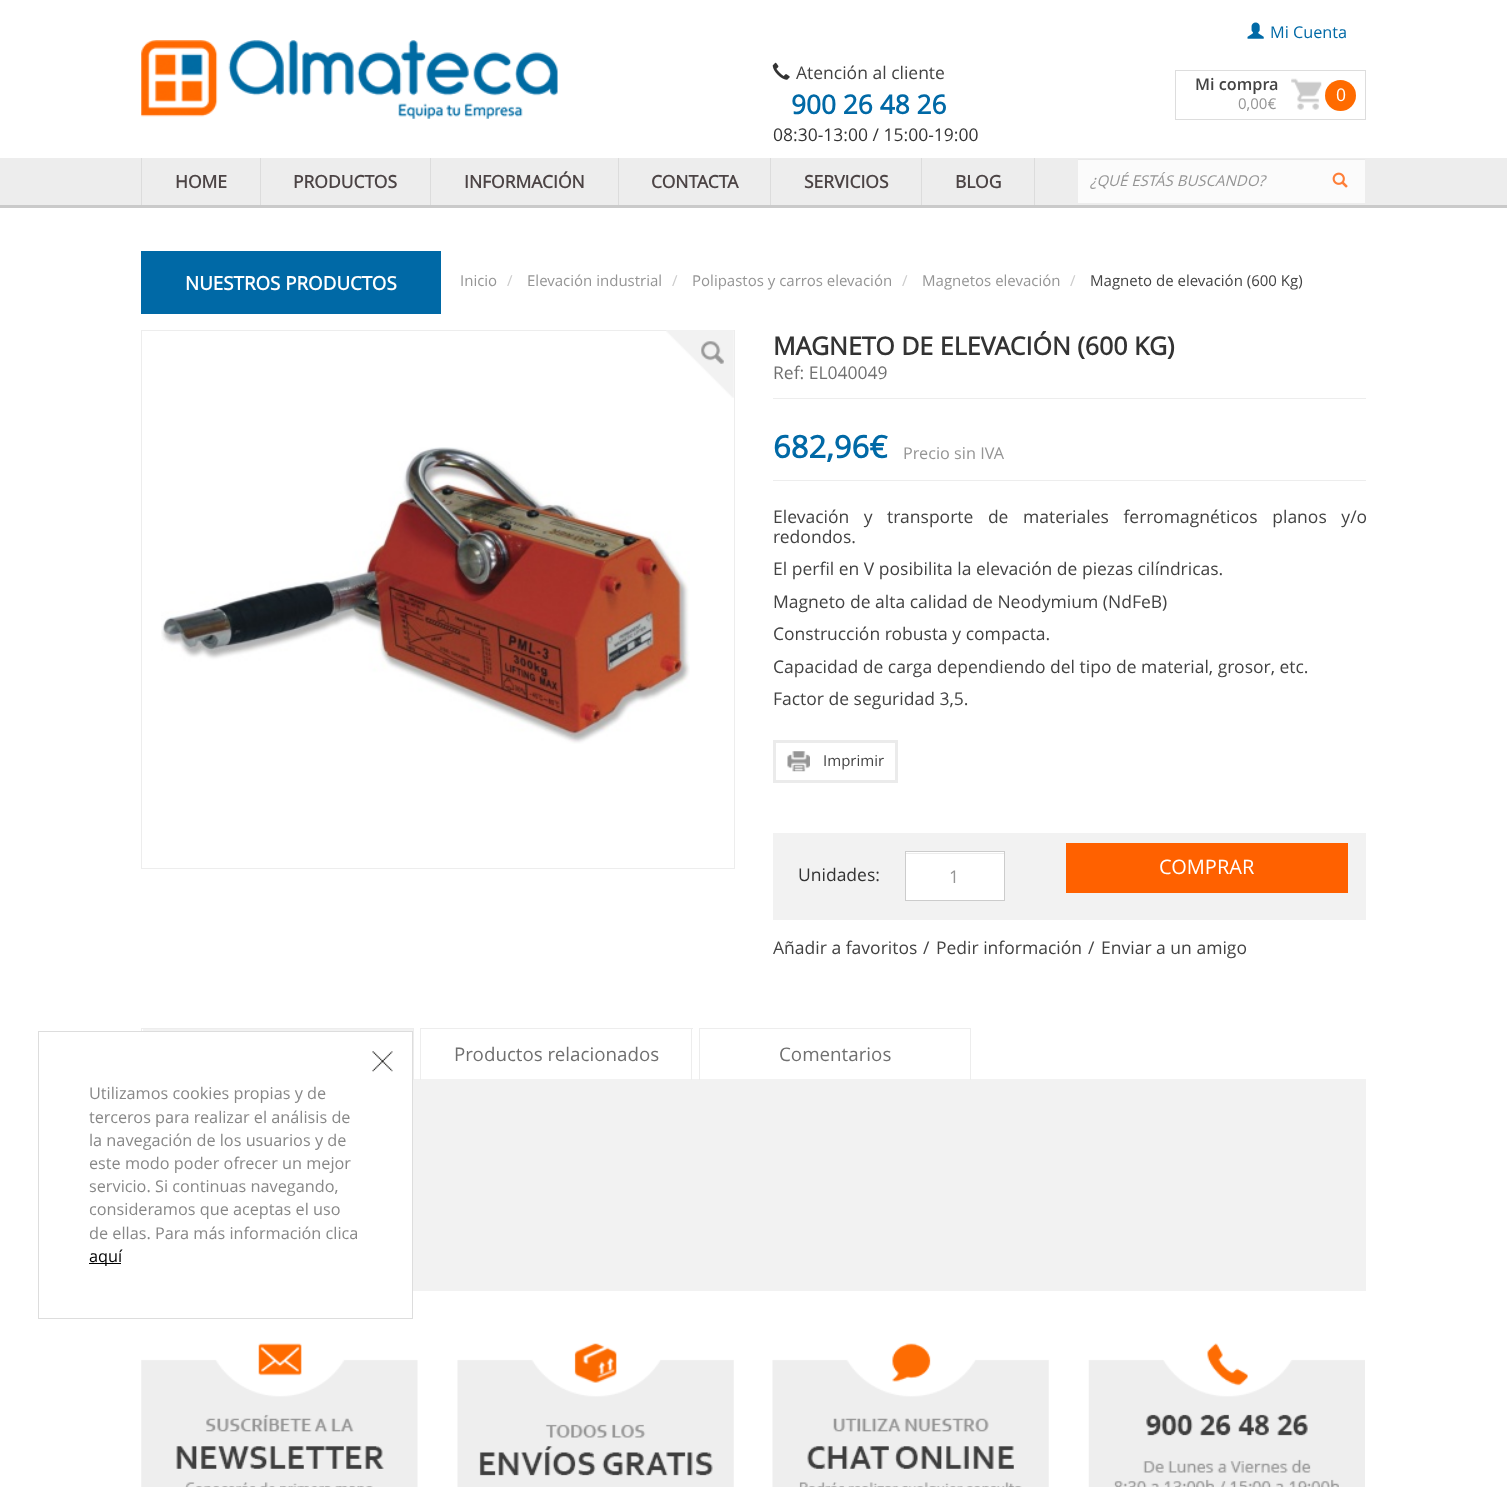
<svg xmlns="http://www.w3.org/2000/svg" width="1507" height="1487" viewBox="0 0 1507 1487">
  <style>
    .t1 { font: 16.25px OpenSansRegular; fill: #0069a6; }
    .t2 { font: 17.5px OpenSansRegular; fill: #434343; }
    .t3 { font: bold 26.25px OpenSansRegular; fill: #0069a6; }
    .t4 { font: 17.5px OpenSansRegular; fill: #333; }
    .t5 { font: 600 16.25px Open Sans; fill: #434343; }
    .t6 { font: 15px OpenSansRegular; fill: #959595; }
    .t7 { font: 17.5px OpenSansRegular; fill: #fff; }
    .t8 { font: bold 17.5px OpenSansRegular; fill: #4c4445; }
    .t9 { font: italic 15px OpenSansRegular; fill: #959595; }
    .t10 { font: bold 18.75px OpenSansRegular; fill: #fff; }
    .t11 { font: 15px OpenSansRegular; fill: #ccc; }
    .t12 { font: 15px OpenSansRegular; fill: #434343; }
    .t13 { font: bold 25px OpenSansRegular; fill: #333; }
    .t14 { font: 17.5px OpenSansRegular; fill: #707070; }
    .t15 { font: bold 31px OpenSansRegular; fill: #0069a6; }
    .t16 { font: 16.25px OpenSansRegular; fill: #959595; }
    .t17 { font: 17.5px OpenSansRegular; fill: #959595; }
    .t18 { font: 20px OpenSansRegular; fill: #fff; }
    .t19 { font: 18.75px OpenSansRegular; fill: #707070; }
    .t20 { font: 16.25px OpenSansRegular; fill: #888; }
    .t21 { font: 16.25px OpenSansRegular; fill: #000; }
  </style>
  <rect width="100%" height="100%" fill="#fff"/>
  <image x="141" y="40" width="417" height="79" href="images/1.png"/>
  <image x="1247" y="22" width="17" height="17" href="images/2.png"/>
  <text x="1270" y="38" class="t1">Mi Cuenta</text>
  <image x="772" y="62" width="18" height="18" href="images/3.png"/>
  <text x="796" y="79" class="t2">Atención al cliente</text>
  <text x="791" y="114" class="t3">900 26 48 26</text>
  <text x="773" y="141" class="t4">08:30-13:00 / 15:00-19:00</text>
  <rect x="1175.5" y="70.5" width="190" height="49" fill="none" stroke="#ddd"/>
  <text x="1195" y="90" class="t5">Mi compra</text>
  <text x="1238" y="109" class="t6">0,00€</text>
  <image x="1291" y="78" width="31" height="32" href="images/4.png"/>
  <circle cx="1340.5" cy="95.5" r="15.5" fill="#ff6b00"/>
  <text x="1336" y="101" class="t7">0</text>
  <rect x="0" y="158" width="1507" height="47" fill="#ededed"/>
  <rect x="0" y="205" width="1507" height="3" fill="#cacaca"/>
  <rect x="1034" y="158" width="1" height="47" fill="#dcdcdc"/>
  <rect x="141" y="158" width="1" height="47" fill="#dcdcdc"/>
  <text x="175" y="188" class="t8">HOME</text>
  <rect x="260" y="158" width="1" height="47" fill="#dcdcdc"/>
  <text x="293" y="188" class="t8">PRODUCTOS</text>
  <rect x="430" y="158" width="1" height="47" fill="#dcdcdc"/>
  <text x="464" y="188" class="t8">INFORMACIÓN</text>
  <rect x="618" y="158" width="1" height="47" fill="#dcdcdc"/>
  <text x="651" y="188" class="t8">CONTACTA</text>
  <rect x="770" y="158" width="1" height="47" fill="#dcdcdc"/>
  <text x="804" y="188" class="t8">SERVICIOS</text>
  <rect x="921" y="158" width="1" height="47" fill="#dcdcdc"/>
  <text x="955" y="188" class="t8">BLOG</text>
  <rect x="1078" y="160" width="287" height="43" fill="#fbfbfb"/>
  <rect x="1078" y="159" width="287" height="1" fill="#e8e8e8"/>
  <text x="1090" y="186" class="t9">¿QUÉ ESTÁS BUSCANDO?</text>
  <image x="1332" y="172" width="16" height="16" href="images/5.png"/>
  <rect x="141" y="251" width="300" height="63" fill="#0069a6"/>
  <text x="185" y="290" class="t10">NUESTROS PRODUCTOS</text>
  <text x="460" y="286" class="t6">Inicio</text>
  <text x="507" y="286" class="t11">/</text>
  <text x="527" y="286" class="t6">Elevación industrial</text>
  <text x="672" y="286" class="t11">/</text>
  <text x="692" y="286" class="t6">Polipastos y carros elevación</text>
  <text x="902" y="286" class="t11">/</text>
  <text x="922" y="286" class="t6">Magnetos elevación</text>
  <text x="1070" y="286" class="t11">/</text>
  <text x="1090" y="286" class="t12">Magneto de elevación (600 Kg)</text>
  <rect x="141.5" y="330.5" width="593" height="538" fill="none" stroke="#ededed"/>
  <image x="161" y="447" width="529" height="297" href="images/6.png"/>
  <image x="666" y="330" width="68" height="68" href="images/7.png"/>
  <text x="773" y="355" class="t13">MAGNETO DE ELEVACIÓN (600 KG)</text>
  <text x="773" y="379" class="t14">Ref: EL040049</text>
  <rect x="773" y="398" width="593" height="1" fill="#ededed"/>
  <rect x="773" y="480" width="593" height="1" fill="#ededed"/>
  <text x="773" y="458" class="t15">682,96€</text>
  <text x="903" y="459" class="t16">Precio sin IVA</text>
  <text x="773" y="523" word-spacing="10" class="t2">Elevación y transporte de materiales ferromagnéticos planos y/o</text>
  <text x="773" y="543" class="t2">redondos.</text>
  <text x="773" y="575" class="t2">El perfil en V posibilita la elevación de piezas cilíndricas.</text>
  <text x="773" y="608" class="t2">Magneto de alta calidad de Neodymium (NdFeB)</text>
  <text x="773" y="640" class="t2">Construcción robusta y compacta.</text>
  <text x="773" y="673" class="t2">Capacidad de carga dependiendo del tipo de material, grosor, etc.</text>
  <text x="773" y="705" class="t2">Factor de seguridad 3,5.</text>
  <rect x="774.5" y="741.5" width="122" height="40" fill="none" stroke="#ebebeb" stroke-width="3"/>
  <image x="787" y="751" width="23" height="21" href="images/8.png"/>
  <text x="823" y="766" class="t12">Imprimir</text>
  <rect x="773" y="833" width="593" height="87" fill="#f2f2f2"/>
  <text x="798" y="881" class="t4">Unidades:</text>
  <rect x="906" y="852" width="98" height="48" fill="#fff"/>
  <rect x="906" y="853" width="98" height="1" fill="#ececec"/>
  <rect x="905.5" y="851.5" width="99" height="49" fill="none" stroke="#ccc"/>
  <text x="949" y="883" class="t17">1</text>
  <rect x="1066" y="843" width="282" height="50" fill="#ff6100"/>
  <text x="1159" y="874" class="t18">COMPRAR</text>
  <text x="773" y="954" class="t2">Añadir a favoritos</text>
  <text x="923" y="954" class="t2">/</text>
  <text x="936" y="954" class="t2">Pedir información</text>
  <text x="1088" y="954" class="t2">/</text>
  <text x="1101" y="954" class="t2">Enviar a un amigo</text>
  <rect x="141" y="1028" width="273" height="1" fill="#ededed"/>
  <rect x="413" y="1079" width="953" height="212" fill="#f2f2f2"/>
  <rect x="413" y="1028" width="1" height="52" fill="#ededed"/>
  <rect x="141" y="1028" width="1" height="3" fill="#ededed"/>
  <rect x="143" y="1029" width="270" height="2" fill="#f2f2f2"/>
  <rect x="420" y="1028" width="273" height="1" fill="#ededed"/>
  <rect x="691" y="1028" width="1" height="52" fill="#ededed"/>
  <rect x="420" y="1028" width="1" height="52" fill="#ededed"/>
  <text x="454" y="1061" class="t19">Productos relacionados</text>
  <rect x="699" y="1028" width="272" height="1" fill="#ededed"/>
  <rect x="970" y="1028" width="1" height="52" fill="#ededed"/>
  <rect x="699" y="1028" width="1" height="52" fill="#ededed"/>
  <text x="779" y="1061" class="t19">Comentarios</text>
  <rect x="38.5" y="1031.5" width="374" height="287" fill="none" stroke="#ddd"/>
  <image x="372" y="1051" width="21" height="21" href="images/9.png"/>
  <text x="89" y="1099" class="t20">Utilizamos cookies propias y de</text>
  <text x="89" y="1123" class="t20">terceros para realizar el análisis de</text>
  <text x="89" y="1146" class="t20">la navegación de los usuarios y de</text>
  <text x="89" y="1169" class="t20">este modo poder ofrecer un mejor</text>
  <text x="89" y="1192" class="t20">servicio. Si continuas navegando,</text>
  <text x="89" y="1215" class="t20">consideramos que aceptas el uso</text>
  <text x="89" y="1239" class="t20">de ellas. Para más información clica</text>
  <rect x="89" y="1263" width="32" height="1" fill="#000"/>
  <text x="89" y="1262" class="t21">aquí</text>
  <image x="141" y="1343" width="277" height="144" href="images/10.png"/>
  <image x="457" y="1343" width="277" height="144" href="images/11.png"/>
  <image x="772" y="1343" width="277" height="144" href="images/12.png"/>
  <image x="1088" y="1343" width="277" height="144" href="images/13.png"/>
</svg>
